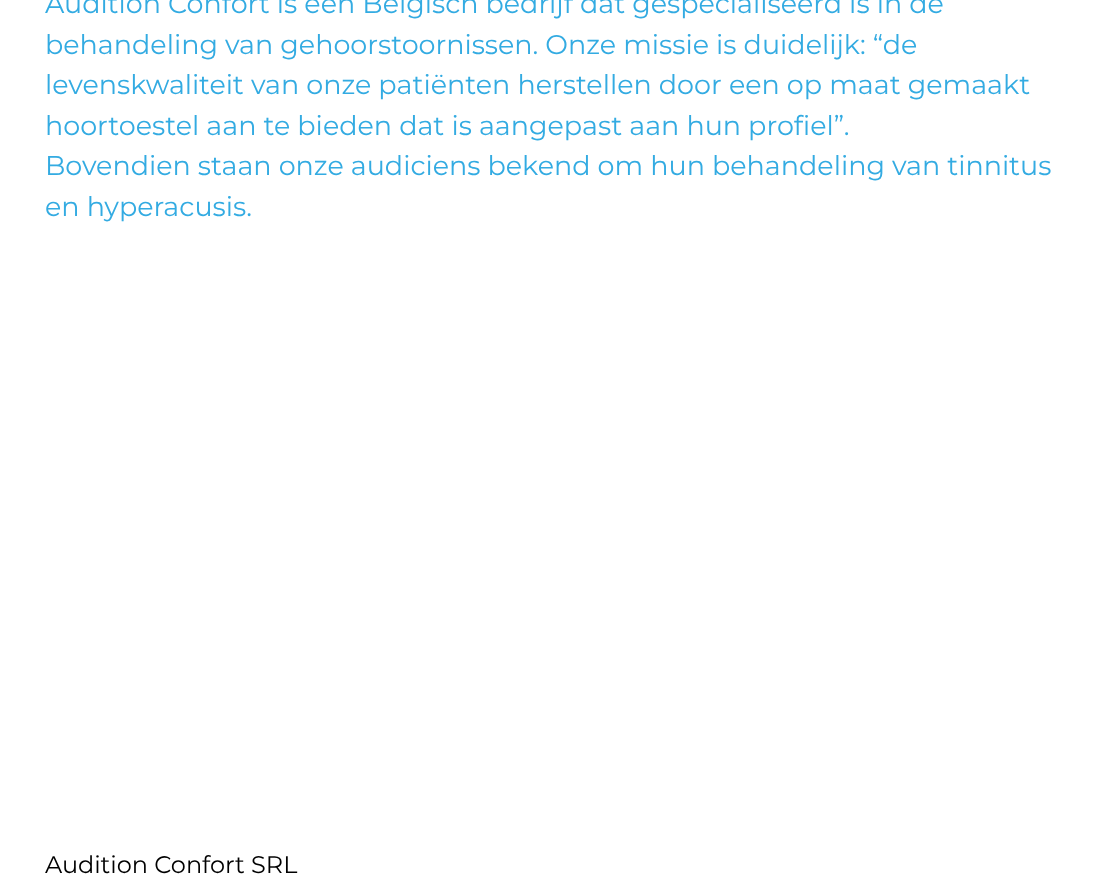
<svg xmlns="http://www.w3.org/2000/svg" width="1114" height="881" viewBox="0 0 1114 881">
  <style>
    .t1 { font: 27px Montserrat; fill: #33abe2; }
    .t2 { font: 24px Montserrat; fill: #000; }
  </style>
  <rect width="100%" height="100%" fill="#fff"/>
  <text x="45" y="13" class="t1">Audition Confort is een Belgisch bedrijf dat gespecialiseerd is in de</text>
  <text x="45" y="54" class="t1">behandeling van gehoorstoornissen. Onze missie is duidelijk: “de</text>
  <text x="45" y="94" class="t1">levenskwaliteit van onze patiënten herstellen door een op maat gemaakt</text>
  <text x="45" y="135" class="t1">hoortoestel aan te bieden dat is aangepast aan hun profiel”.</text>
  <text x="45" y="175" class="t1">Bovendien staan onze audiciens bekend om hun behandeling van tinnitus</text>
  <text x="45" y="216" class="t1">en hyperacusis.</text>
  <text x="45" y="873" class="t2">Audition Confort SRL</text>
</svg>
